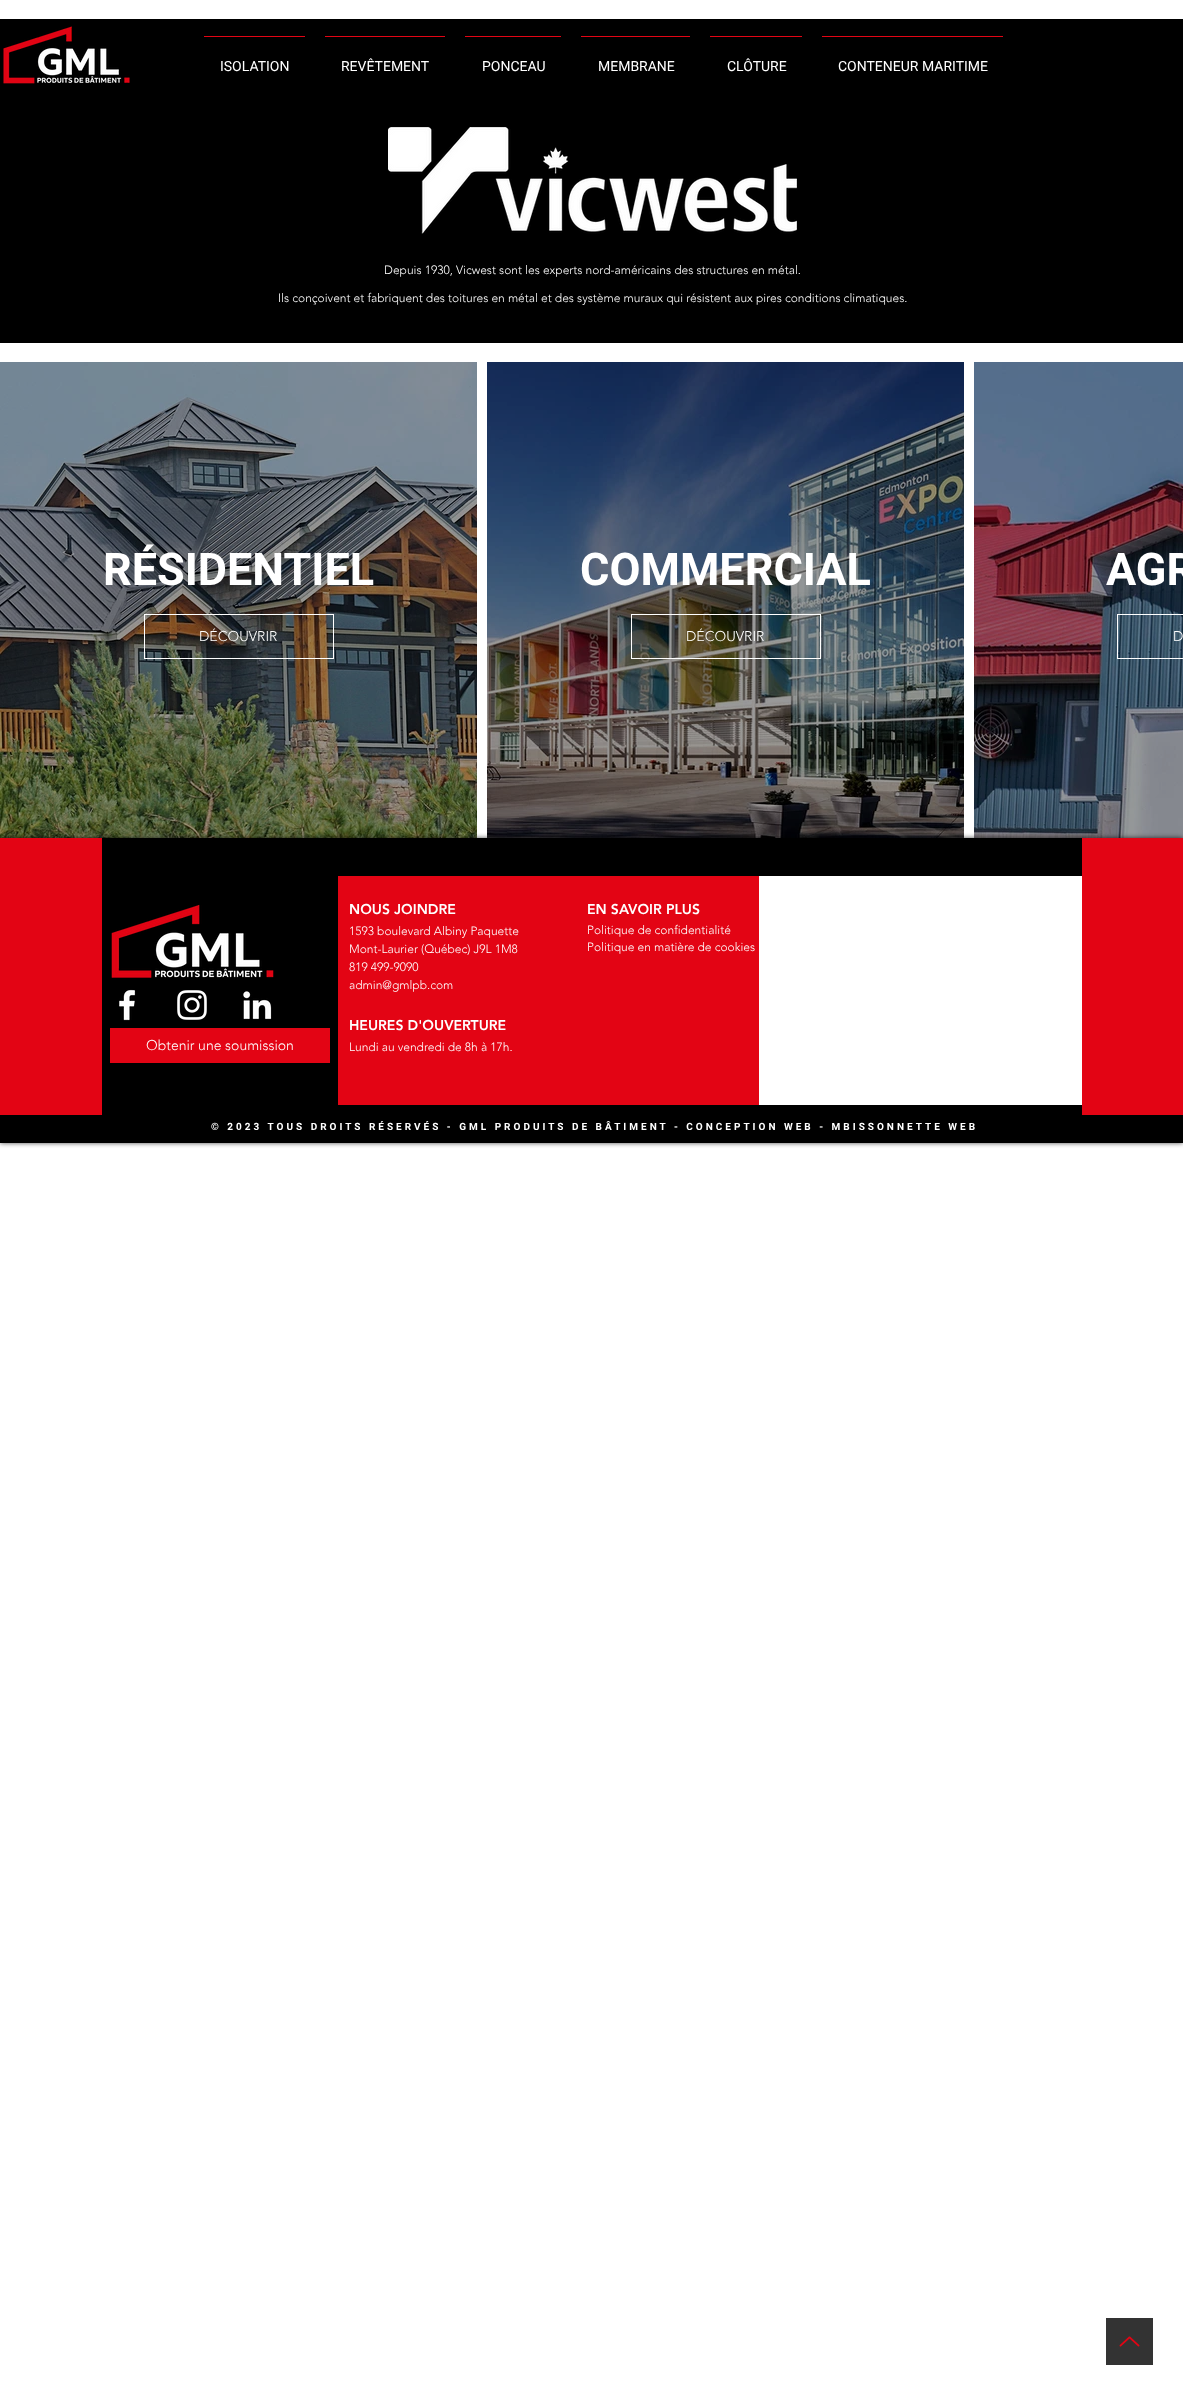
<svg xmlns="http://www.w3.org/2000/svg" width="1183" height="2405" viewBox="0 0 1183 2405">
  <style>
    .t1 { font: 14px Roboto; fill: #fff; }
    .t2 { font: 300 12px 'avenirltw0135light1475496'; fill: #fff; }
    .t3 { font: bold 45px Roboto; fill: #fff; }
    .t4 { font: 300 14px 'avenirltw0135light1475496'; fill: #fff; }
    .t5 { font: 900 14px 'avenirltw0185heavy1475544'; fill: #fff; }
    .t6 { font: bold 10px Roboto; letter-spacing: 3px; fill: #fff; }
  </style>
  <rect width="100%" height="100%" fill="#fff"/>
  <rect x="0" y="19" width="1183" height="324" fill="#000"/>
  <image x="3" y="26" width="127" height="58" href="images/1.png"/>
  <rect x="204" y="36" width="101" height="1" fill="#e30414"/>
  <text x="220" y="71" class="t1">ISOLATION</text>
  <rect x="325" y="36" width="120" height="1" fill="#e30414"/>
  <text x="341" y="71" class="t1">REVÊTEMENT</text>
  <rect x="465" y="36" width="96" height="1" fill="#e30414"/>
  <text x="482" y="71" class="t1">PONCEAU</text>
  <rect x="581" y="36" width="109" height="1" fill="#e30414"/>
  <text x="598" y="71" class="t1">MEMBRANE</text>
  <rect x="710" y="36" width="92" height="1" fill="#e30414"/>
  <text x="727" y="71" class="t1">CLÔTURE</text>
  <rect x="822" y="36" width="181" height="1" fill="#e30414"/>
  <text x="838" y="71" class="t1">CONTENEUR MARITIME</text>
  <image x="388" y="127" width="409" height="107" href="images/2.png"/>
  <text x="384" y="274" class="t2">Depuis 1930, Vicwest sont les experts nord-américains des structures en métal.</text>
  <text x="278" y="302" class="t2">Ils conçoivent et fabriquent des toitures en métal et des système muraux qui résistent aux pires conditions climatiques.</text>
  <image x="0" y="362" width="477" height="476" href="images/3.png"/>
  <text x="103" y="585" class="t3">RÉSIDENTIEL</text>
  <rect x="144.5" y="614.5" width="189" height="44" fill="none" stroke="#fff"/>
  <text x="199" y="641" class="t4">DÉCOUVRIR</text>
  <image x="487" y="362" width="477" height="476" href="images/4.png"/>
  <text x="580" y="585" class="t3">COMMERCIAL</text>
  <rect x="631.5" y="614.5" width="189" height="44" fill="none" stroke="#fff"/>
  <text x="686" y="641" class="t4">DÉCOUVRIR</text>
  <image x="974" y="362" width="209" height="476" href="images/5.png"/>
  <text x="1106" y="585" class="t3">AGR</text>
  <rect x="1117.5" y="614.5" width="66" height="44" fill="none" stroke="#fff"/>
  <text x="1173" y="641" class="t4">D</text>
  <rect x="0" y="838" width="1183" height="305" fill="#000000b3" filter="blur(2.5px)"/>
  <rect x="0" y="838" width="1183" height="277" fill="#e30414"/>
  <rect x="102" y="838" width="980" height="277" fill="#000"/>
  <image x="111" y="904" width="163" height="74" href="images/6.png"/>
  <image x="119" y="989" width="17" height="32" href="images/7.png"/>
  <image x="177" y="990" width="30" height="30" href="images/8.png"/>
  <image x="243" y="991" width="29" height="29" href="images/9.png"/>
  <rect x="110" y="1028" width="220" height="35" fill="#e30414"/>
  <text x="146" y="1050" class="t4">Obtenir une soumission</text>
  <rect x="338" y="876" width="421" height="229" fill="#e30414"/>
  <text x="349" y="914" class="t5">NOUS JOINDRE</text>
  <text x="587" y="914" class="t5">EN SAVOIR PLUS</text>
  <text x="349" y="935" class="t2">1593 boulevard Albiny Paquette</text>
  <text x="349" y="953" class="t2">Mont-Laurier (Québec) J9L 1M8</text>
  <text x="349" y="971" class="t2">819 499-9090</text>
  <text x="349" y="989" class="t2">admin@gmlpb.com</text>
  <text x="587" y="934" class="t2">Politique de confidentialité</text>
  <text x="587" y="951" class="t2">Politique en matière de cookies</text>
  <text x="349" y="1030" class="t5">HEURES D'OUVERTURE</text>
  <text x="349" y="1051" class="t2">Lundi au vendredi de 8h à 17h.</text>
  <rect x="759" y="876" width="323" height="229" fill="#fff"/>
  <rect x="0" y="1115" width="1183" height="28" fill="#000"/>
  <text x="211" y="1130" class="t6">© 2023 TOUS DROITS RÉSERVÉS - GML PRODUITS DE BÂTIMENT - CONCEPTION WEB - MBISSONNETTE WEB</text>
  <rect x="1106" y="2318" width="47" height="47" fill="#333"/>
  <image x="1119" y="2336" width="21" height="11" href="images/10.png"/>
</svg>
